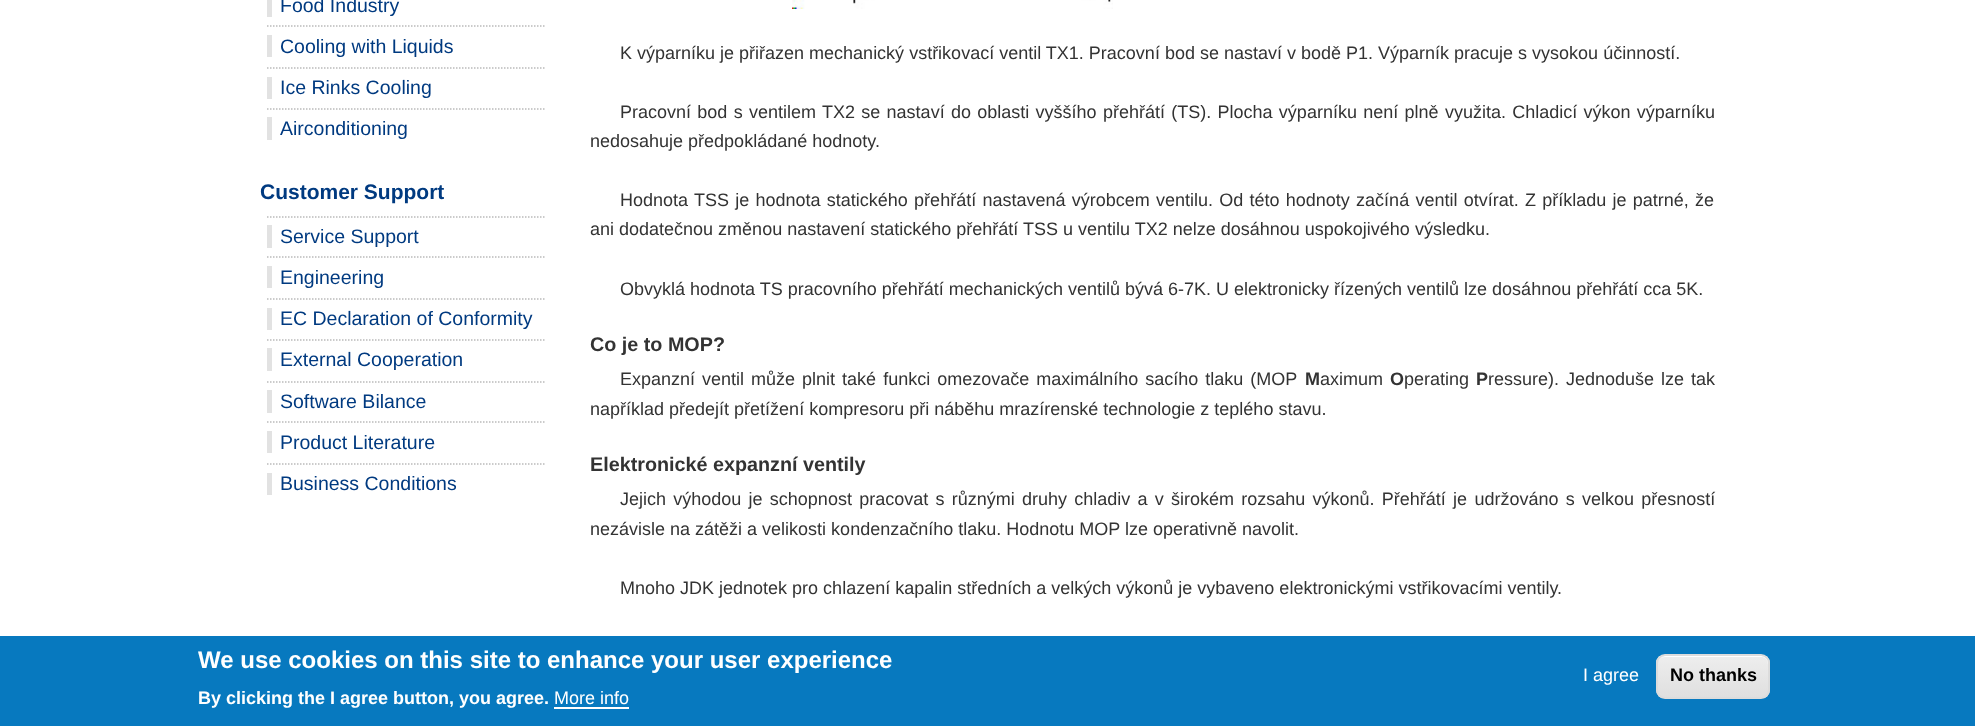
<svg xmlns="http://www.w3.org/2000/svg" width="1975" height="726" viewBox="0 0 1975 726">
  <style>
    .t1 { font: 19.5px Liberation Sans; fill: #003a80; }
    .t2 { font: bold 21px Liberation Sans; fill: #003a80; }
    .t3 { font: 18px Liberation Sans; fill: #333; }
    .t4 { font: bold 19.75px Liberation Sans; fill: #333; }
    .t5 { font: bold 18px Liberation Sans; fill: #333; }
    .t6 { font: bold 24px Liberation Sans; fill: #fff; }
    .t7 { font: bold 18px Liberation Sans; fill: #fff; }
    .t8 { font: 18px Liberation Sans; fill: #fff; }
    .t9 { font: bold 18px Liberation Sans; fill: #000; }
  </style>
  <defs>
    <clipPath id="clip1"><rect x="1656" y="654" width="114" height="45" rx="9"/></clipPath>
    <linearGradient id="g1" gradientUnits="userSpaceOnUse" x1="1713" y1="656" x2="1713" y2="698"><stop offset="0.05" stop-color="#ededed"/><stop offset="1" stop-color="#dfdfdf"/></linearGradient>
  </defs>
  <rect width="100%" height="100%" fill="#fff"/>
  <text x="280" y="12" class="t1">Food Industry</text>
  <rect x="267" y="0" width="5" height="17" fill="#e2e2e2"/>
  <path d="M267 26H546" fill="none" stroke="#bbb" stroke-width="1.5" stroke-dasharray="1.5 1.5"/>
  <text x="280" y="53" class="t1">Cooling with Liquids</text>
  <rect x="267" y="35" width="5" height="22" fill="#e2e2e2"/>
  <path d="M267 68H546" fill="none" stroke="#bbb" stroke-width="1.5" stroke-dasharray="1.5 1.5"/>
  <text x="280" y="94" class="t1">Ice Rinks Cooling</text>
  <rect x="267" y="77" width="5" height="22" fill="#e2e2e2"/>
  <path d="M267 109H546" fill="none" stroke="#bbb" stroke-width="1.5" stroke-dasharray="1.5 1.5"/>
  <text x="280" y="135" class="t1">Airconditioning</text>
  <rect x="267" y="117" width="5" height="23" fill="#e2e2e2"/>
  <text x="260" y="199" class="t2">Customer Support</text>
  <path d="M267 217H546" fill="none" stroke="#bbb" stroke-width="1.5" stroke-dasharray="1.5 1.5"/>
  <text x="280" y="243" class="t1">Service Support</text>
  <rect x="267" y="225" width="5" height="23" fill="#e2e2e2"/>
  <path d="M267 257H546" fill="none" stroke="#bbb" stroke-width="1.5" stroke-dasharray="1.5 1.5"/>
  <text x="280" y="284" class="t1">Engineering</text>
  <rect x="267" y="266" width="5" height="22" fill="#e2e2e2"/>
  <path d="M267 299H546" fill="none" stroke="#bbb" stroke-width="1.5" stroke-dasharray="1.5 1.5"/>
  <text x="280" y="325" class="t1">EC Declaration of Conformity</text>
  <rect x="267" y="308" width="5" height="22" fill="#e2e2e2"/>
  <path d="M267 340H546" fill="none" stroke="#bbb" stroke-width="1.5" stroke-dasharray="1.5 1.5"/>
  <text x="280" y="366" class="t1">External Cooperation</text>
  <rect x="267" y="348" width="5" height="23" fill="#e2e2e2"/>
  <path d="M267 382H546" fill="none" stroke="#bbb" stroke-width="1.5" stroke-dasharray="1.5 1.5"/>
  <text x="280" y="408" class="t1">Software Bilance</text>
  <rect x="267" y="390" width="5" height="23" fill="#e2e2e2"/>
  <path d="M267 422H546" fill="none" stroke="#bbb" stroke-width="1.5" stroke-dasharray="1.5 1.5"/>
  <text x="280" y="449" class="t1">Product Literature</text>
  <rect x="267" y="431" width="5" height="22" fill="#e2e2e2"/>
  <path d="M267 464H546" fill="none" stroke="#bbb" stroke-width="1.5" stroke-dasharray="1.5 1.5"/>
  <text x="280" y="490" class="t1">Business Conditions</text>
  <rect x="267" y="473" width="5" height="22" fill="#e2e2e2"/>
  <image x="792" y="0" width="321" height="9" href="images/1.png"/>
  <text x="620" y="59" class="t3">K výparníku je přiřazen mechanický vstřikovací ventil TX1. Pracovní bod se nastaví v bodě P1. Výparník pracuje s vysokou účinností.</text>
  <text x="620" y="118" word-spacing="1.3" class="t3">Pracovní bod s ventilem TX2 se nastaví do oblasti vyššího přehřátí (TS). Plocha výparníku není plně využita. Chladicí výkon výparníku</text>
  <text x="590" y="147" class="t3">nedosahuje předpokládané hodnoty.</text>
  <text x="620" y="206" word-spacing="1.25" class="t3">Hodnota TSS je hodnota statického přehřátí nastavená výrobcem ventilu. Od této hodnoty začíná ventil otvírat. Z příkladu je patrné, že</text>
  <text x="590" y="235" class="t3">ani dodatečnou změnou nastavení statického přehřátí TSS u ventilu TX2 nelze dosáhnou uspokojivého výsledku.</text>
  <text x="620" y="295" class="t3">Obvyklá hodnota TS pracovního přehřátí mechanických ventilů bývá 6-7K. U elektronicky řízených ventilů lze dosáhnou přehřátí cca 5K.</text>
  <text x="590" y="351" class="t4">Co je to MOP?</text>
  <text x="620" y="385" word-spacing="2" class="t3">Expanzní ventil může plnit také funkci omezovače maximálního sacího tlaku (MOP</text>
  <text x="1305" y="385" class="t5">M</text>
  <text x="1320" y="385" class="t3">aximum</text>
  <text x="1390" y="385" class="t5">O</text>
  <text x="1404" y="385" class="t3">perating</text>
  <text x="1476" y="385" class="t5">P</text>
  <text x="1488" y="385" word-spacing="2" class="t3">ressure). Jednoduše lze tak</text>
  <text x="590" y="415" class="t3">například předejít přetížení kompresoru při náběhu mrazírenské technologie z teplého stavu.</text>
  <text x="590" y="471" class="t4">Elektronické expanzní ventily</text>
  <text x="620" y="505" word-spacing="2.25" class="t3">Jejich výhodou je schopnost pracovat s různými druhy chladiv a v širokém rozsahu výkonů. Přehřátí je udržováno s velkou přesností</text>
  <text x="590" y="535" class="t3">nezávisle na zátěži a velikosti kondenzačního tlaku. Hodnotu MOP lze operativně navolit.</text>
  <text x="620" y="594" class="t3">Mnoho JDK jednotek pro chlazení kapalin středních a velkých výkonů je vybaveno elektronickými vstřikovacími ventily.</text>
  <rect x="0" y="636" width="1975" height="90" fill="#0779bf"/>
  <text x="198" y="668" class="t6">We use cookies on this site to enhance your user experience</text>
  <text x="198" y="704" class="t7">By clicking the I agree button, you agree.</text>
  <text x="554" y="704" class="t8">More info</text>
  <rect x="554" y="707" width="75" height="2" fill="#fff"/>
  <text x="1583" y="681" class="t8">I agree</text>
  <g clip-path="url(#clip1)">
    <rect x="1656" y="656" width="114" height="42" fill="url(#g1)"/>
  </g>
  <path d="M1665 657H1761C1770 657 1768 668 1768 673V695C1768 693 1769 692 1769 690V664C1769 660 1765 656 1761 656H1666C1662 656 1658 660 1658 664C1658 660 1661 657 1665 657Z" fill="#fff"/>
  <rect x="1657" y="655" width="112" height="43" rx="8" fill="none" stroke="#dcdcdc" stroke-width="2"/>
  <text x="1670" y="681" class="t9">No thanks</text>
</svg>
